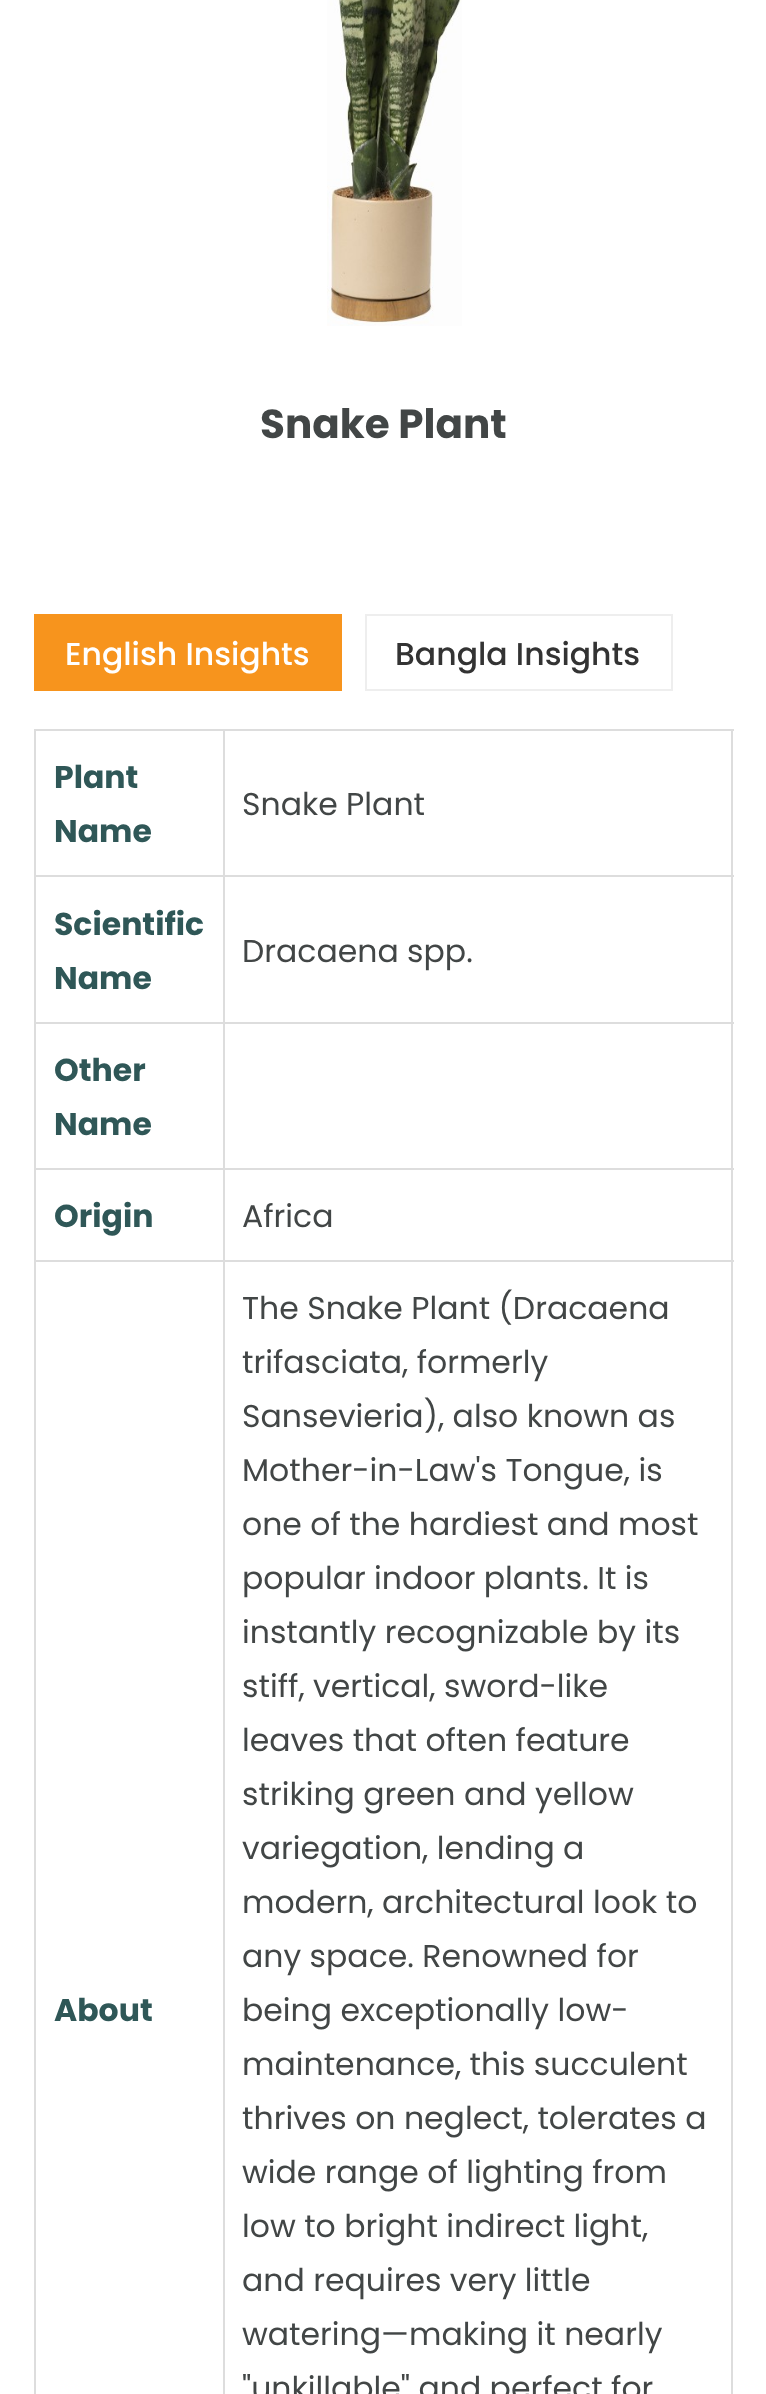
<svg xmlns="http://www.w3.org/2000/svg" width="766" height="2394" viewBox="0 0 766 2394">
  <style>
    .t1 { font: bold 40.5px Poppins; fill: #424646; }
    .t2 { font: 500 31.5px Poppins; fill: #fff; }
    .t3 { font: 500 31.5px Poppins; fill: #333; }
    .t4 { font: bold 31.5px Poppins; fill: #2f5757; }
    .t5 { font: 31.5px Poppins; fill: #424646; }
  </style>
  <rect width="100%" height="100%" fill="#fff"/>
  <image x="327" y="0" width="135" height="326" href="images/1.png"/>
  <text x="260" y="438" class="t1">Snake Plant</text>
  <rect x="34" y="614" width="308" height="77" fill="#f7941d"/>
  <text x="65" y="665" class="t2">English Insights</text>
  <rect x="366" y="615" width="306" height="75" fill="none" stroke="#eee" stroke-width="2"/>
  <text x="395" y="665" class="t3">Bangla Insights</text>
  <rect x="223" y="729" width="511" height="2" fill="#ddd"/>
  <rect x="223" y="875" width="511" height="2" fill="#ddd"/>
  <rect x="223" y="1022" width="511" height="2" fill="#ddd"/>
  <rect x="223" y="1168" width="511" height="2" fill="#ddd"/>
  <rect x="223" y="1260" width="511" height="2" fill="#ddd"/>
  <rect x="223" y="1260" width="2" height="1134" fill="#ddd"/>
  <rect x="34" y="1260" width="191" height="2" fill="#ddd"/>
  <rect x="223" y="1168" width="2" height="94" fill="#ddd"/>
  <rect x="34" y="1168" width="191" height="2" fill="#ddd"/>
  <rect x="223" y="1022" width="2" height="148" fill="#ddd"/>
  <rect x="34" y="1022" width="191" height="2" fill="#ddd"/>
  <rect x="223" y="875" width="2" height="149" fill="#ddd"/>
  <rect x="34" y="875" width="191" height="2" fill="#ddd"/>
  <rect x="223" y="729" width="2" height="149" fill="#ddd"/>
  <rect x="34" y="729" width="191" height="2" fill="#ddd"/>
  <rect x="34" y="1260" width="2" height="1134" fill="#ddd"/>
  <rect x="34" y="1168" width="2" height="94" fill="#ddd"/>
  <rect x="34" y="1022" width="2" height="148" fill="#ddd"/>
  <rect x="34" y="875" width="2" height="149" fill="#ddd"/>
  <rect x="34" y="729" width="2" height="149" fill="#ddd"/>
  <text x="54" y="788" class="t4">Plant</text>
  <text x="54" y="842" class="t4">Name</text>
  <rect x="731" y="1260" width="2" height="1134" fill="#ddd"/>
  <rect x="731" y="1168" width="2" height="94" fill="#ddd"/>
  <rect x="731" y="1022" width="2" height="148" fill="#ddd"/>
  <rect x="731" y="875" width="2" height="149" fill="#ddd"/>
  <rect x="731" y="729" width="2" height="149" fill="#ddd"/>
  <text x="242" y="815" class="t5">Snake Plant</text>
  <text x="54" y="935" class="t4">Scientific</text>
  <text x="54" y="989" class="t4">Name</text>
  <text x="242" y="962" class="t5">Dracaena spp.</text>
  <text x="54" y="1081" class="t4">Other</text>
  <text x="54" y="1135" class="t4">Name</text>
  <text x="54" y="1227" class="t4">Origin</text>
  <text x="242" y="1227" class="t5">Africa</text>
  <text x="54" y="2021" class="t4">About</text>
  <text x="242" y="1319" class="t5">The Snake Plant (Dracaena</text>
  <text x="242" y="1373" class="t5">trifasciata, formerly</text>
  <text x="242" y="1427" class="t5">Sansevieria), also known as</text>
  <text x="242" y="1481" class="t5">Mother-in-Law's Tongue, is</text>
  <text x="242" y="1535" class="t5">one of the hardiest and most</text>
  <text x="242" y="1589" class="t5">popular indoor plants. It is</text>
  <text x="242" y="1643" class="t5">instantly recognizable by its</text>
  <text x="242" y="1697" class="t5">stiff, vertical, sword-like</text>
  <text x="242" y="1751" class="t5">leaves that often feature</text>
  <text x="242" y="1805" class="t5">striking green and yellow</text>
  <text x="242" y="1859" class="t5">variegation, lending a</text>
  <text x="242" y="1913" class="t5">modern, architectural look to</text>
  <text x="242" y="1967" class="t5">any space. Renowned for</text>
  <text x="242" y="2021" class="t5">being exceptionally low-</text>
  <text x="242" y="2075" class="t5">maintenance, this succulent</text>
  <text x="242" y="2129" class="t5">thrives on neglect, tolerates a</text>
  <text x="242" y="2183" class="t5">wide range of lighting from</text>
  <text x="242" y="2237" class="t5">low to bright indirect light,</text>
  <text x="242" y="2291" class="t5">and requires very little</text>
  <text x="242" y="2345" class="t5">watering—making it nearly</text>
  <text x="242" y="2399" class="t5">"unkillable" and perfect for</text>
</svg>
